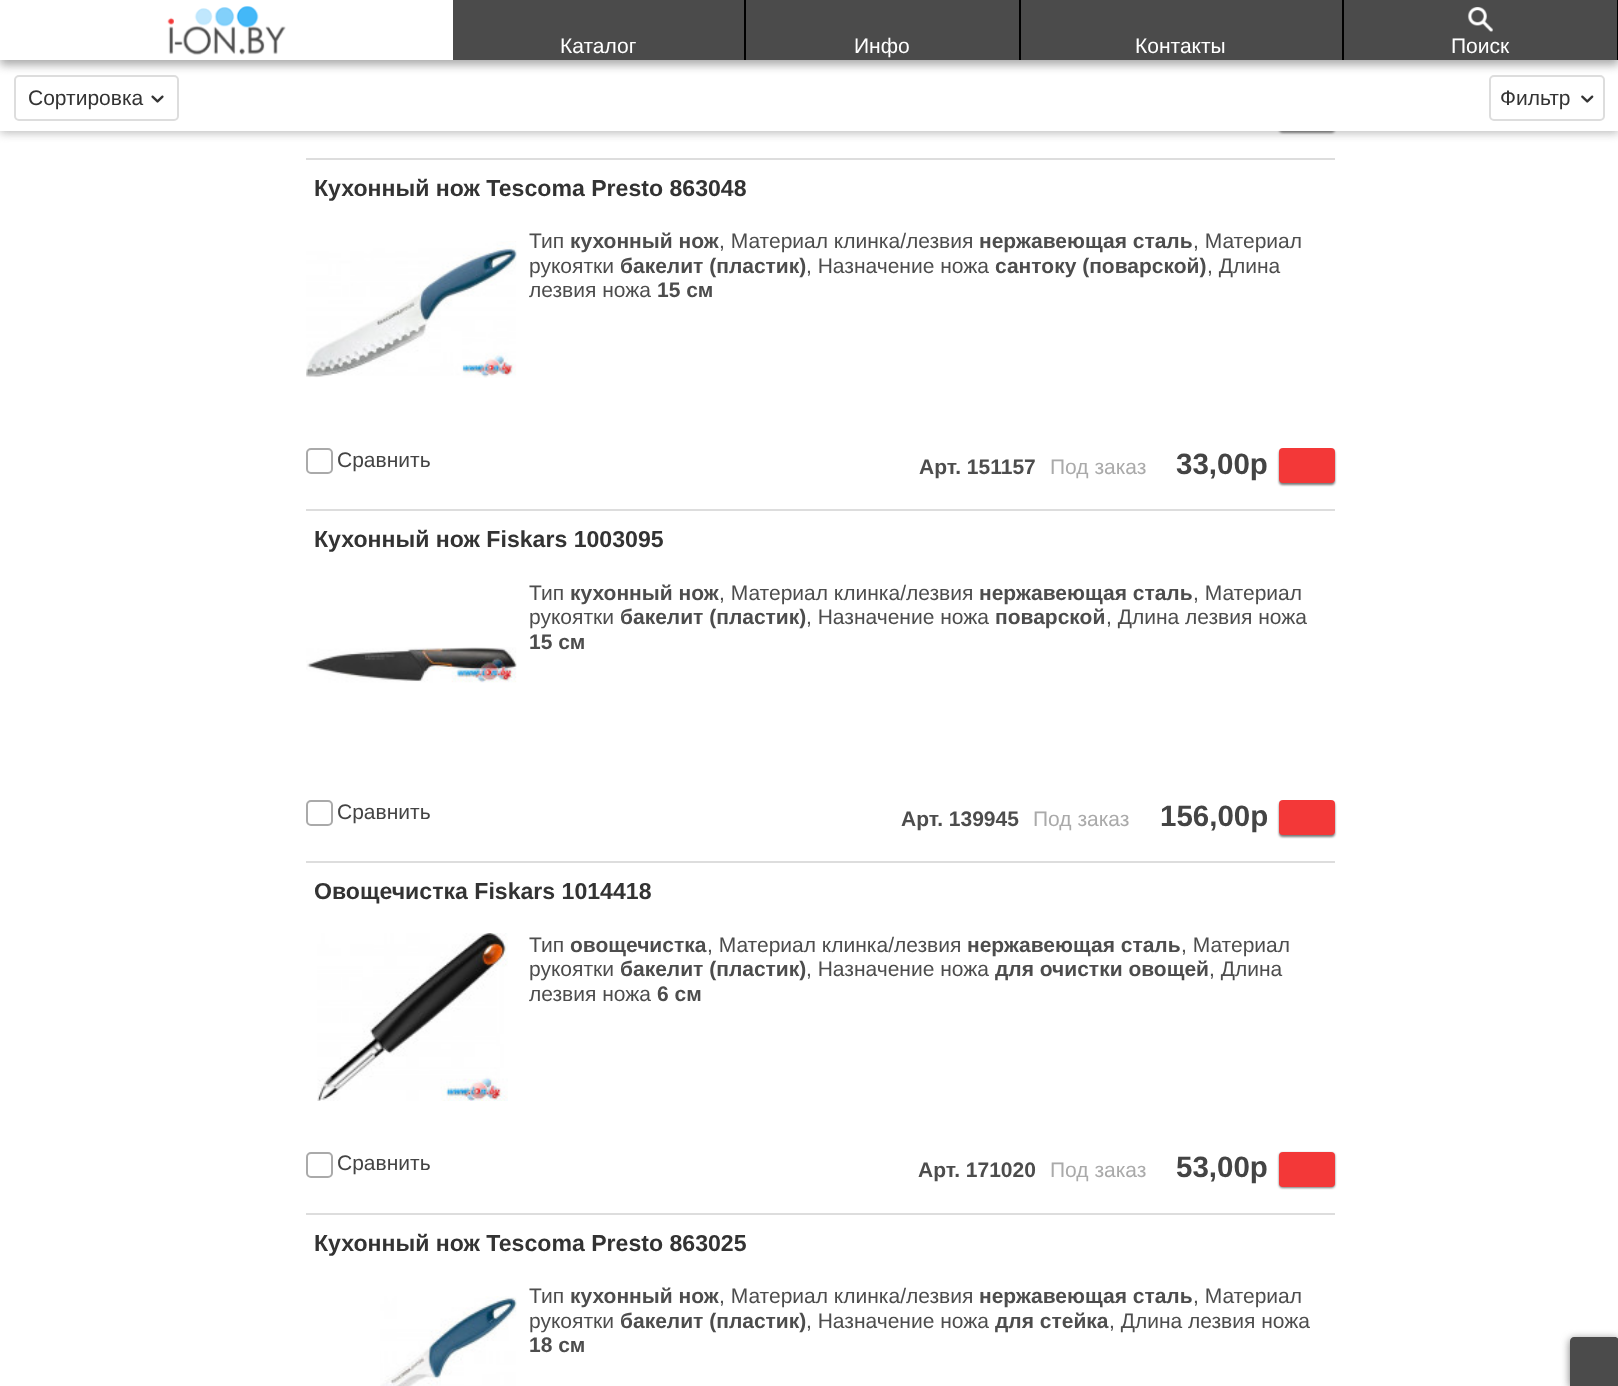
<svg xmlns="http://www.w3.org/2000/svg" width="1618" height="1386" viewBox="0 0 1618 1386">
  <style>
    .t1 { font: 21px Liberation Sans; fill: #fff; }
    .t2 { font: 21px Liberation Sans; fill: #333; }
    .t3 { font: bold 23.1px Liberation Sans; fill: #333; }
    .t4 { font: 21px Liberation Sans; fill: #4d4d4d; }
    .t5 { font: bold 21px Liberation Sans; fill: #4d4d4d; }
    .t6 { font: 21px Liberation Sans; fill: #444; }
    .t7 { font: 21px Liberation Sans; fill: #aaa; }
    .t8 { font: bold 29.5px Liberation Sans; fill: #444; }
  </style>
  <rect width="100%" height="100%" fill="#fff"/>
  <rect x="0" y="61" width="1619" height="72" fill="#bbb" filter="blur(5px)"/>
  <rect x="1279" y="98" width="56" height="35" rx="4" fill="#777" filter="blur(1px)"/>
  <rect x="0" y="60" width="1618" height="71" fill="#fff"/>
  <rect x="15" y="76" width="163" height="44" rx="4" fill="none" stroke="#ddd" stroke-width="2"/>
  <rect x="1490" y="76" width="114" height="44" rx="4" fill="none" stroke="#ddd" stroke-width="2"/>
  <rect x="0" y="5" width="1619" height="60" fill="#aaa" filter="blur(5px)"/>
  <rect x="0" y="0" width="453" height="60" fill="#fff"/>
  <image x="167" y="6" width="119" height="49" href="images/1.png"/>
  <rect x="453" y="0" width="291" height="60" fill="#4b4b4b"/>
  <rect x="744" y="0" width="2" height="60" fill="#000"/>
  <text x="560" y="53" class="t1">Каталог</text>
  <rect x="746" y="0" width="273" height="60" fill="#4b4b4b"/>
  <rect x="1019" y="0" width="2" height="60" fill="#000"/>
  <text x="854" y="53" class="t1">Инфо</text>
  <rect x="1021" y="0" width="321" height="60" fill="#4b4b4b"/>
  <rect x="1342" y="0" width="2" height="60" fill="#000"/>
  <text x="1135" y="53" class="t1">Контакты</text>
  <rect x="1344" y="0" width="273" height="60" fill="#4b4b4b"/>
  <image x="1467" y="7" width="26" height="25" href="images/2.png"/>
  <rect x="1617" y="0" width="1" height="60" fill="#000"/>
  <text x="1451" y="53" class="t1">Поиск</text>
  <text x="28" y="105" class="t2">Сортировка</text>
  <image x="151" y="95" width="13" height="8" href="images/3.png"/>
  <text x="1500" y="105" class="t2">Фильтр</text>
  <image x="1581" y="95" width="13" height="8" href="images/4.png"/>
  <rect x="306" y="158" width="1029" height="2" fill="#ddd"/>
  <text x="314" y="196" class="t3">Кухонный нож Tescoma Presto 863048</text>
  <image x="306" y="241" width="211" height="137" href="images/5.png"/>
  <text x="529" y="248" class="t4">Тип</text>
  <text x="570" y="248" class="t5">кухонный нож</text>
  <text x="719" y="248" class="t4">, Материал клинка/лезвия</text>
  <text x="979" y="248" class="t5">нержавеющая сталь</text>
  <text x="1193" y="248" class="t4">, Материал</text>
  <text x="529" y="273" class="t4">рукоятки</text>
  <text x="620" y="273" class="t5">бакелит (пластик)</text>
  <text x="806" y="273" class="t4">, Назначение ножа</text>
  <text x="995" y="273" class="t5">сантоку (поварской)</text>
  <text x="1207" y="273" class="t4">, Длина</text>
  <text x="529" y="297" class="t4">лезвия ножа</text>
  <text x="657" y="297" class="t5">15 см</text>
  <rect x="307" y="449" width="25" height="24" rx="4" fill="none" stroke="#aaa" stroke-width="2"/>
  <text x="337" y="467" class="t6">Сравнить</text>
  <text x="919" y="474" class="t5">Арт. 151157</text>
  <text x="1050" y="474" class="t7">Под заказ</text>
  <text x="1176" y="474" class="t8">33,00р</text>
  <rect x="1279" y="450" width="56" height="35" rx="4" fill="#777" filter="blur(1px)"/>
  <rect x="1279" y="448" width="56" height="35" rx="4" fill="#f33838"/>
  <rect x="306" y="509" width="1029" height="2" fill="#ddd"/>
  <text x="314" y="547" class="t3">Кухонный нож Fiskars 1003095</text>
  <image x="306" y="647" width="211" height="36" href="images/6.png"/>
  <text x="529" y="600" class="t4">Тип</text>
  <text x="570" y="600" class="t5">кухонный нож</text>
  <text x="719" y="600" class="t4">, Материал клинка/лезвия</text>
  <text x="979" y="600" class="t5">нержавеющая сталь</text>
  <text x="1193" y="600" class="t4">, Материал</text>
  <text x="529" y="624" class="t4">рукоятки</text>
  <text x="620" y="624" class="t5">бакелит (пластик)</text>
  <text x="806" y="624" class="t4">, Назначение ножа</text>
  <text x="995" y="624" class="t5">поварской</text>
  <text x="1106" y="624" class="t4">, Длина лезвия ножа</text>
  <text x="529" y="649" class="t5">15 см</text>
  <rect x="307" y="801" width="25" height="24" rx="4" fill="none" stroke="#aaa" stroke-width="2"/>
  <text x="337" y="819" class="t6">Сравнить</text>
  <text x="901" y="826" class="t5">Арт. 139945</text>
  <text x="1033" y="826" class="t7">Под заказ</text>
  <text x="1160" y="826" class="t8">156,00р</text>
  <rect x="1279" y="802" width="56" height="35" rx="4" fill="#777" filter="blur(1px)"/>
  <rect x="1279" y="800" width="56" height="35" rx="4" fill="#f33838"/>
  <rect x="306" y="861" width="1029" height="2" fill="#ddd"/>
  <text x="314" y="899" class="t3">Овощечистка Fiskars 1014418</text>
  <image x="317" y="933" width="191" height="168" href="images/7.png"/>
  <text x="529" y="952" class="t4">Тип</text>
  <text x="570" y="952" class="t5">овощечистка</text>
  <text x="707" y="952" class="t4">, Материал клинка/лезвия</text>
  <text x="967" y="952" class="t5">нержавеющая сталь</text>
  <text x="1181" y="952" class="t4">, Материал</text>
  <text x="529" y="976" class="t4">рукоятки</text>
  <text x="620" y="976" class="t5">бакелит (пластик)</text>
  <text x="806" y="976" class="t4">, Назначение ножа</text>
  <text x="995" y="976" class="t5">для очистки овощей</text>
  <text x="1209" y="976" class="t4">, Длина</text>
  <text x="529" y="1001" class="t4">лезвия ножа</text>
  <text x="657" y="1001" class="t5">6 см</text>
  <rect x="307" y="1153" width="25" height="24" rx="4" fill="none" stroke="#aaa" stroke-width="2"/>
  <text x="337" y="1170" class="t6">Сравнить</text>
  <text x="918" y="1177" class="t5">Арт. 171020</text>
  <text x="1050" y="1177" class="t7">Под заказ</text>
  <text x="1176" y="1177" class="t8">53,00р</text>
  <rect x="1279" y="1153" width="56" height="35" rx="4" fill="#777" filter="blur(1px)"/>
  <rect x="1279" y="1152" width="56" height="35" rx="4" fill="#f33838"/>
  <rect x="306" y="1213" width="1029" height="2" fill="#ddd"/>
  <text x="314" y="1251" class="t3">Кухонный нож Tescoma Presto 863025</text>
  <image x="380" y="1296" width="137" height="90" href="images/8.png"/>
  <text x="529" y="1303" class="t4">Тип</text>
  <text x="570" y="1303" class="t5">кухонный нож</text>
  <text x="719" y="1303" class="t4">, Материал клинка/лезвия</text>
  <text x="979" y="1303" class="t5">нержавеющая сталь</text>
  <text x="1193" y="1303" class="t4">, Материал</text>
  <text x="529" y="1328" class="t4">рукоятки</text>
  <text x="620" y="1328" class="t5">бакелит (пластик)</text>
  <text x="806" y="1328" class="t4">, Назначение ножа</text>
  <text x="995" y="1328" class="t5">для стейка</text>
  <text x="1109" y="1328" class="t4">, Длина лезвия ножа</text>
  <text x="529" y="1352" class="t5">18 см</text>
  <rect x="1570" y="1339" width="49" height="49" rx="4" fill="#777" filter="blur(4.5px)"/>
  <path d="M1574 1337H1615C1617 1337 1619 1339 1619 1341V1386H1570V1341C1570 1339 1572 1337 1574 1337Z" fill="#4b4b4b"/>
</svg>
